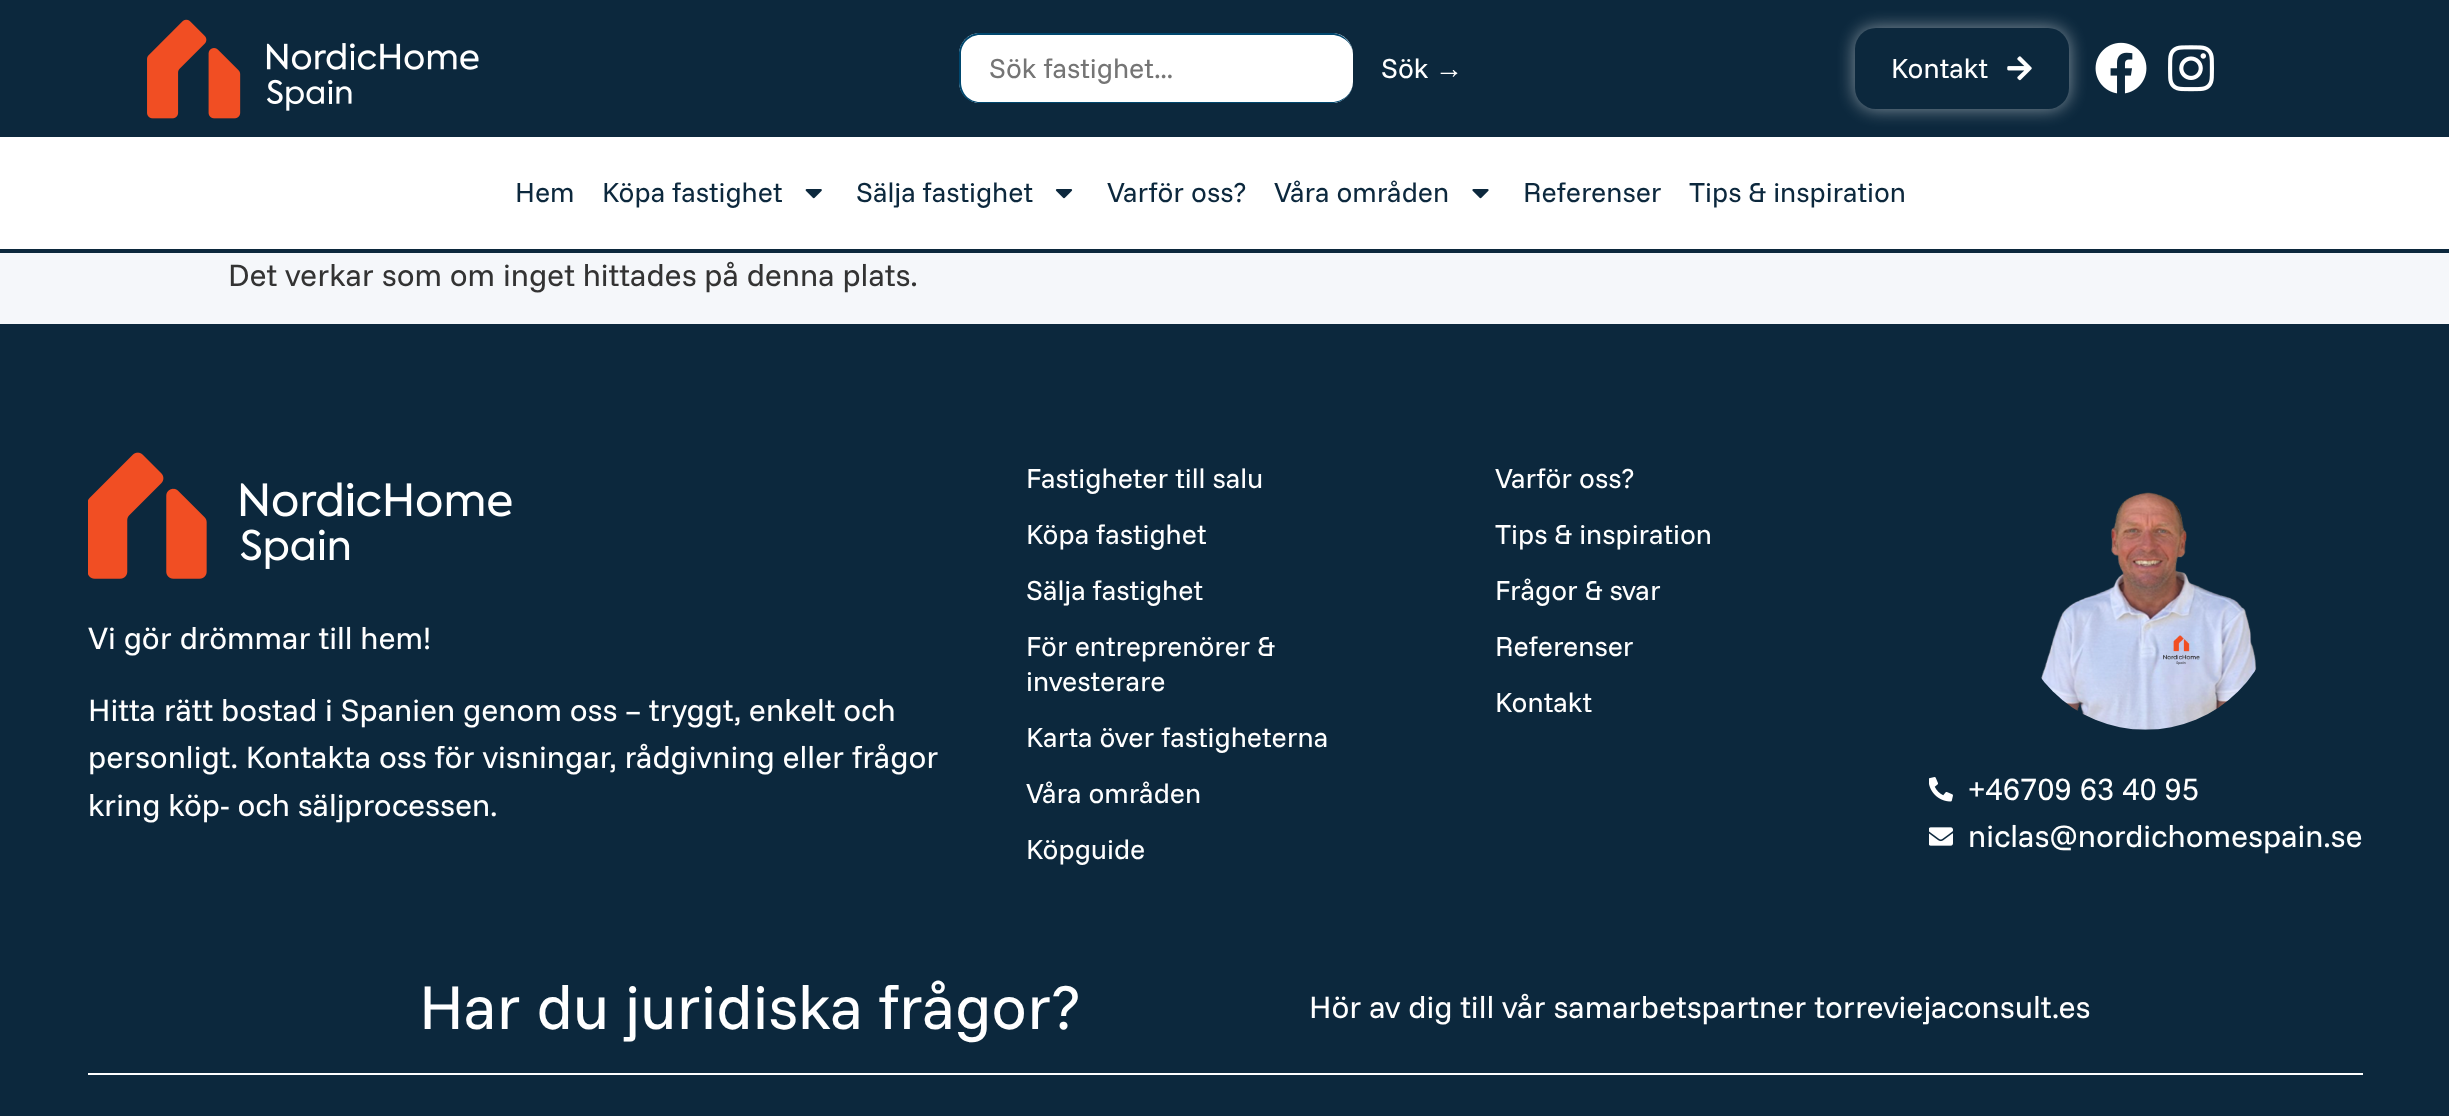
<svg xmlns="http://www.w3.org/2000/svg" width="2449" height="1116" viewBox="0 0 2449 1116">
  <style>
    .t1 { font: 28px Funnel Sans; fill: #757575; }
    .t2 { font: 28px Funnel Sans; fill: #fff; }
    .t3 { font: 28px Liberation Sans; fill: #fff; }
    .t4 { font: 28px Funnel Sans; fill: #0c283d; }
    .t5 { font: 31.5px Funnel Sans; fill: #333; }
    .t6 { font: 31.5px Funnel Sans; fill: #fff; }
    .t7 { font: 63px Funnel Sans; fill: #fff; }
  </style>
  <rect width="100%" height="100%" fill="#f5f7fa"/>
  <rect x="0" y="0" width="2449" height="137" fill="#0c283d"/>
  <image x="147" y="19" width="332" height="100" href="images/1.png"/>
  <rect x="959" y="33" width="394" height="70" rx="21" fill="#fff"/>
  <path d="M980 33H1332C1343 33 1353 43 1353 54V82C1353 94 1343 103 1332 103H980C968 103 959 94 959 82V54C959 43 968 33 980 33ZM980 35H1332C1343 35 1353 44 1353 54V82C1353 93 1343 102 1332 102H980C969 102 961 93 961 82V54C961 44 969 35 980 35Z" fill="#00476e" fill-rule="evenodd"/>
  <text x="989" y="78" class="t1">Sök fastighet...</text>
  <text x="1381" y="78" class="t2">Sök</text>
  <text x="1435" y="78" class="t3">→</text>
  <rect x="1855" y="28" width="214" height="81" rx="21" fill="#ffffff80" filter="blur(9px)"/>
  <rect x="1855" y="28" width="214" height="81" rx="21" fill="#0c283d"/>
  <text x="1891" y="78" class="t2">Kontakt</text>
  <image x="2007" y="56" width="25" height="25" href="images/2.png"/>
  <image x="2095" y="42" width="52" height="52" href="images/3.png"/>
  <image x="2168" y="45" width="46" height="47" href="images/4.png"/>
  <rect x="0" y="137" width="2449" height="112" fill="#fff"/>
  <rect x="0" y="249" width="2449" height="4" fill="#0c283d"/>
  <text x="515" y="202" class="t4">Hem</text>
  <text x="602" y="202" class="t4">Köpa fastighet</text>
  <image x="805" y="189" width="17" height="10" href="images/5.png"/>
  <text x="856" y="202" class="t4">Sälja fastighet</text>
  <image x="1055" y="189" width="18" height="10" href="images/6.png"/>
  <text x="1107" y="202" class="t4">Varför oss?</text>
  <text x="1274" y="202" class="t4">Våra områden</text>
  <image x="1472" y="189" width="17" height="10" href="images/7.png"/>
  <text x="1523" y="202" class="t4">Referenser</text>
  <text x="1689" y="202" class="t4">Tips &amp; inspiration</text>
  <text x="228" y="286" class="t5">Det verkar som om inget hittades på denna plats.</text>
  <rect x="0" y="324" width="2449" height="792" fill="#0c283d"/>
  <image x="88" y="452" width="424" height="127" href="images/8.png"/>
  <text x="88" y="649" class="t6">Vi gör drömmar till hem!</text>
  <text x="88" y="721" class="t6">Hitta rätt bostad i Spanien genom oss – tryggt, enkelt och</text>
  <text x="88" y="768" class="t6">personligt. Kontakta oss för visningar, rådgivning eller frågor</text>
  <text x="88" y="816" class="t6">kring köp- och säljprocessen.</text>
  <text x="1026" y="488" class="t2">Fastigheter till salu</text>
  <text x="1026" y="544" class="t2">Köpa fastighet</text>
  <text x="1026" y="600" class="t2">Sälja fastighet</text>
  <text x="1026" y="656" class="t2">För entreprenörer &amp;</text>
  <text x="1026" y="691" class="t2">investerare</text>
  <text x="1026" y="747" class="t2">Karta över fastigheterna</text>
  <text x="1026" y="803" class="t2">Våra områden</text>
  <text x="1026" y="859" class="t2">Köpguide</text>
  <text x="1495" y="488" class="t2">Varför oss?</text>
  <text x="1495" y="544" class="t2">Tips &amp; inspiration</text>
  <text x="1495" y="600" class="t2">Frågor &amp; svar</text>
  <text x="1495" y="656" class="t2">Referenser</text>
  <text x="1495" y="712" class="t2">Kontakt</text>
  <image x="2041" y="492" width="216" height="238" href="images/9.png"/>
  <image x="1929" y="777" width="24" height="25" href="images/10.png"/>
  <text x="1968" y="800" class="t6">+46709 63 40 95</text>
  <image x="1929" y="827" width="24" height="19" href="images/11.png"/>
  <text x="1968" y="847" class="t6">niclas@nordichomespain.se</text>
  <text x="419" y="1029" class="t7">Har du juridiska frågor?</text>
  <text x="1309" y="1018" class="t6">Hör av dig till vår samarbetspartner torreviejaconsult.es</text>
  <rect x="88" y="1073" width="2275" height="2" fill="#fff"/>
</svg>
